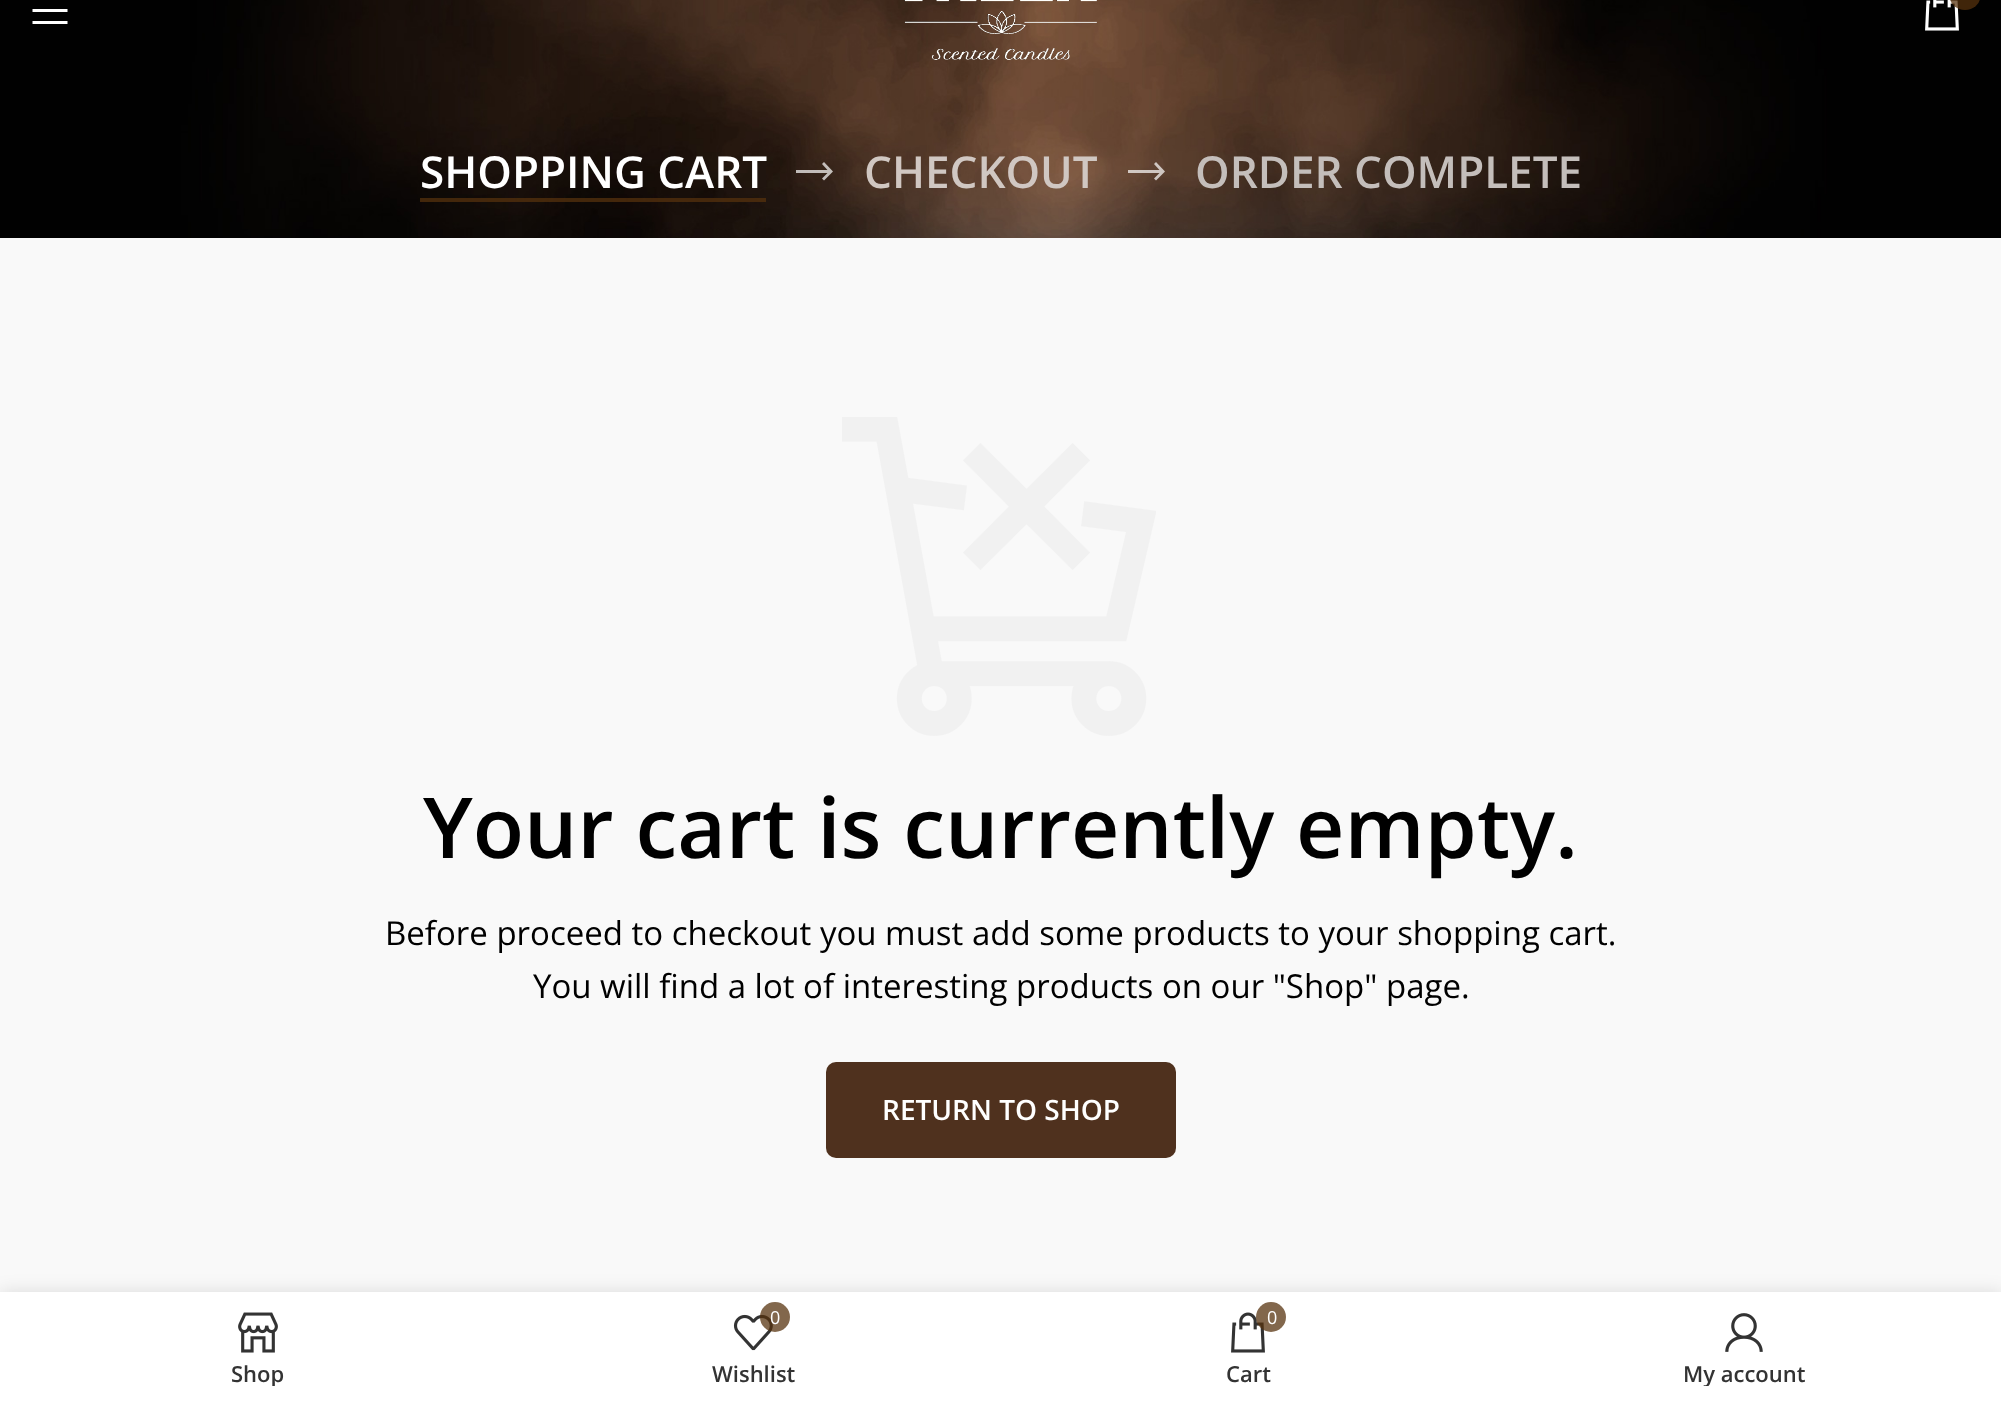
<svg xmlns="http://www.w3.org/2000/svg" width="2001" height="1402" viewBox="0 0 2001 1402">
  <style>
    .t1 { font: 600 44px Open Sans; fill: #fff; }
    .t2 { font: 600 44px Open Sans; fill: #d0c7c2; }
    .t3 { font: 600 44px Open Sans; fill: #c4bebb; }
    .t4 { font: 600 84px Open Sans; fill: #000; }
    .t5 { font: 33px Open Sans; fill: #000; }
    .t6 { font: 600 28px Open Sans; fill: #fff; }
    .t7 { font: 600 22px Open Sans; fill: #333; }
    .t8 { font: 18px Open Sans; fill: #fff; }
  </style>
  <defs>
    <clipPath id="clip1"><rect x="30" y="1360" width="456" height="26"/></clipPath>
    <clipPath id="clip2"><rect x="1516" y="1360" width="456" height="26"/></clipPath>
  </defs>
  <rect width="100%" height="100%" fill="#f9f9f9"/>
  <image x="0" y="0" width="2001" height="238" href="images/3.png"/>
  <path d="M32.5 0H67.5V-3H32.5ZM32.5 12H67.5V9H32.5ZM32.5 24H67.5V21H32.5Z" fill="#fff"/>
  <image x="904" y="0" width="193" height="61" href="images/1.png"/>
  <image x="1925" y="0" width="34" height="31" href="images/2.png"/>
  <rect x="1950" y="-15" width="30" height="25" rx="15" fill="#56320dbd"/>
  <text x="420" y="188" class="t1">SHOPPING CART</text>
  <rect x="420" y="198" width="346" height="4" fill="#56320dbd"/>
  <path d="M833 171.5L824 162L822 164L827.5 170H796V173H827.5L822 178.5L824 180.5Z" fill="#ffffffb3"/>
  <text x="864" y="188" class="t2">CHECKOUT</text>
  <path d="M1165 171.5L1156 162L1154 164L1159.5 170H1128V173H1159.5L1154 178.5L1156 180.5Z" fill="#ffffffb3"/>
  <text x="1195" y="188" class="t3">ORDER COMPLETE</text>
  <image x="842" y="417" width="314" height="319" href="images/4.png"/>
  <text x="423" y="858" class="t4">Your cart is currently empty.</text>
  <text x="385" y="945" class="t5">Before proceed to checkout you must add some products to your shopping cart.</text>
  <text x="533" y="998" class="t5">You will find a lot of interesting products on our "Shop" page.</text>
  <rect x="826" y="1062" width="350" height="96" rx="10" fill="#4f311e"/>
  <text x="882" y="1120" class="t6">RETURN TO SHOP</text>
  <rect x="0" y="1292" width="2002" height="110" fill="#0000001f" filter="blur(9px)"/>
  <rect x="0" y="1292" width="2001" height="110" fill="#fff"/>
  <image x="238" y="1312" width="40" height="41" href="images/5.png"/>
  <g clip-path="url(#clip1)">
    <text x="231" y="1382" class="t7">Shop</text>
  </g>
  <image x="733" y="1314" width="40" height="37" href="images/6.png"/>
  <circle cx="775" cy="1317" r="15" fill="#56320dbd"/>
  <text x="770" y="1324" class="t8">0</text>
  <text x="712" y="1382" class="t7">Wishlist</text>
  <image x="1231" y="1312" width="34" height="41" href="images/7.png"/>
  <circle cx="1271" cy="1317" r="15" fill="#56320dbd"/>
  <text x="1267" y="1324" class="t8">0</text>
  <text x="1226" y="1382" class="t7">Cart</text>
  <image x="1725" y="1313" width="38" height="39" href="images/8.png"/>
  <g clip-path="url(#clip2)">
    <text x="1683" y="1382" class="t7">My account</text>
  </g>
</svg>
